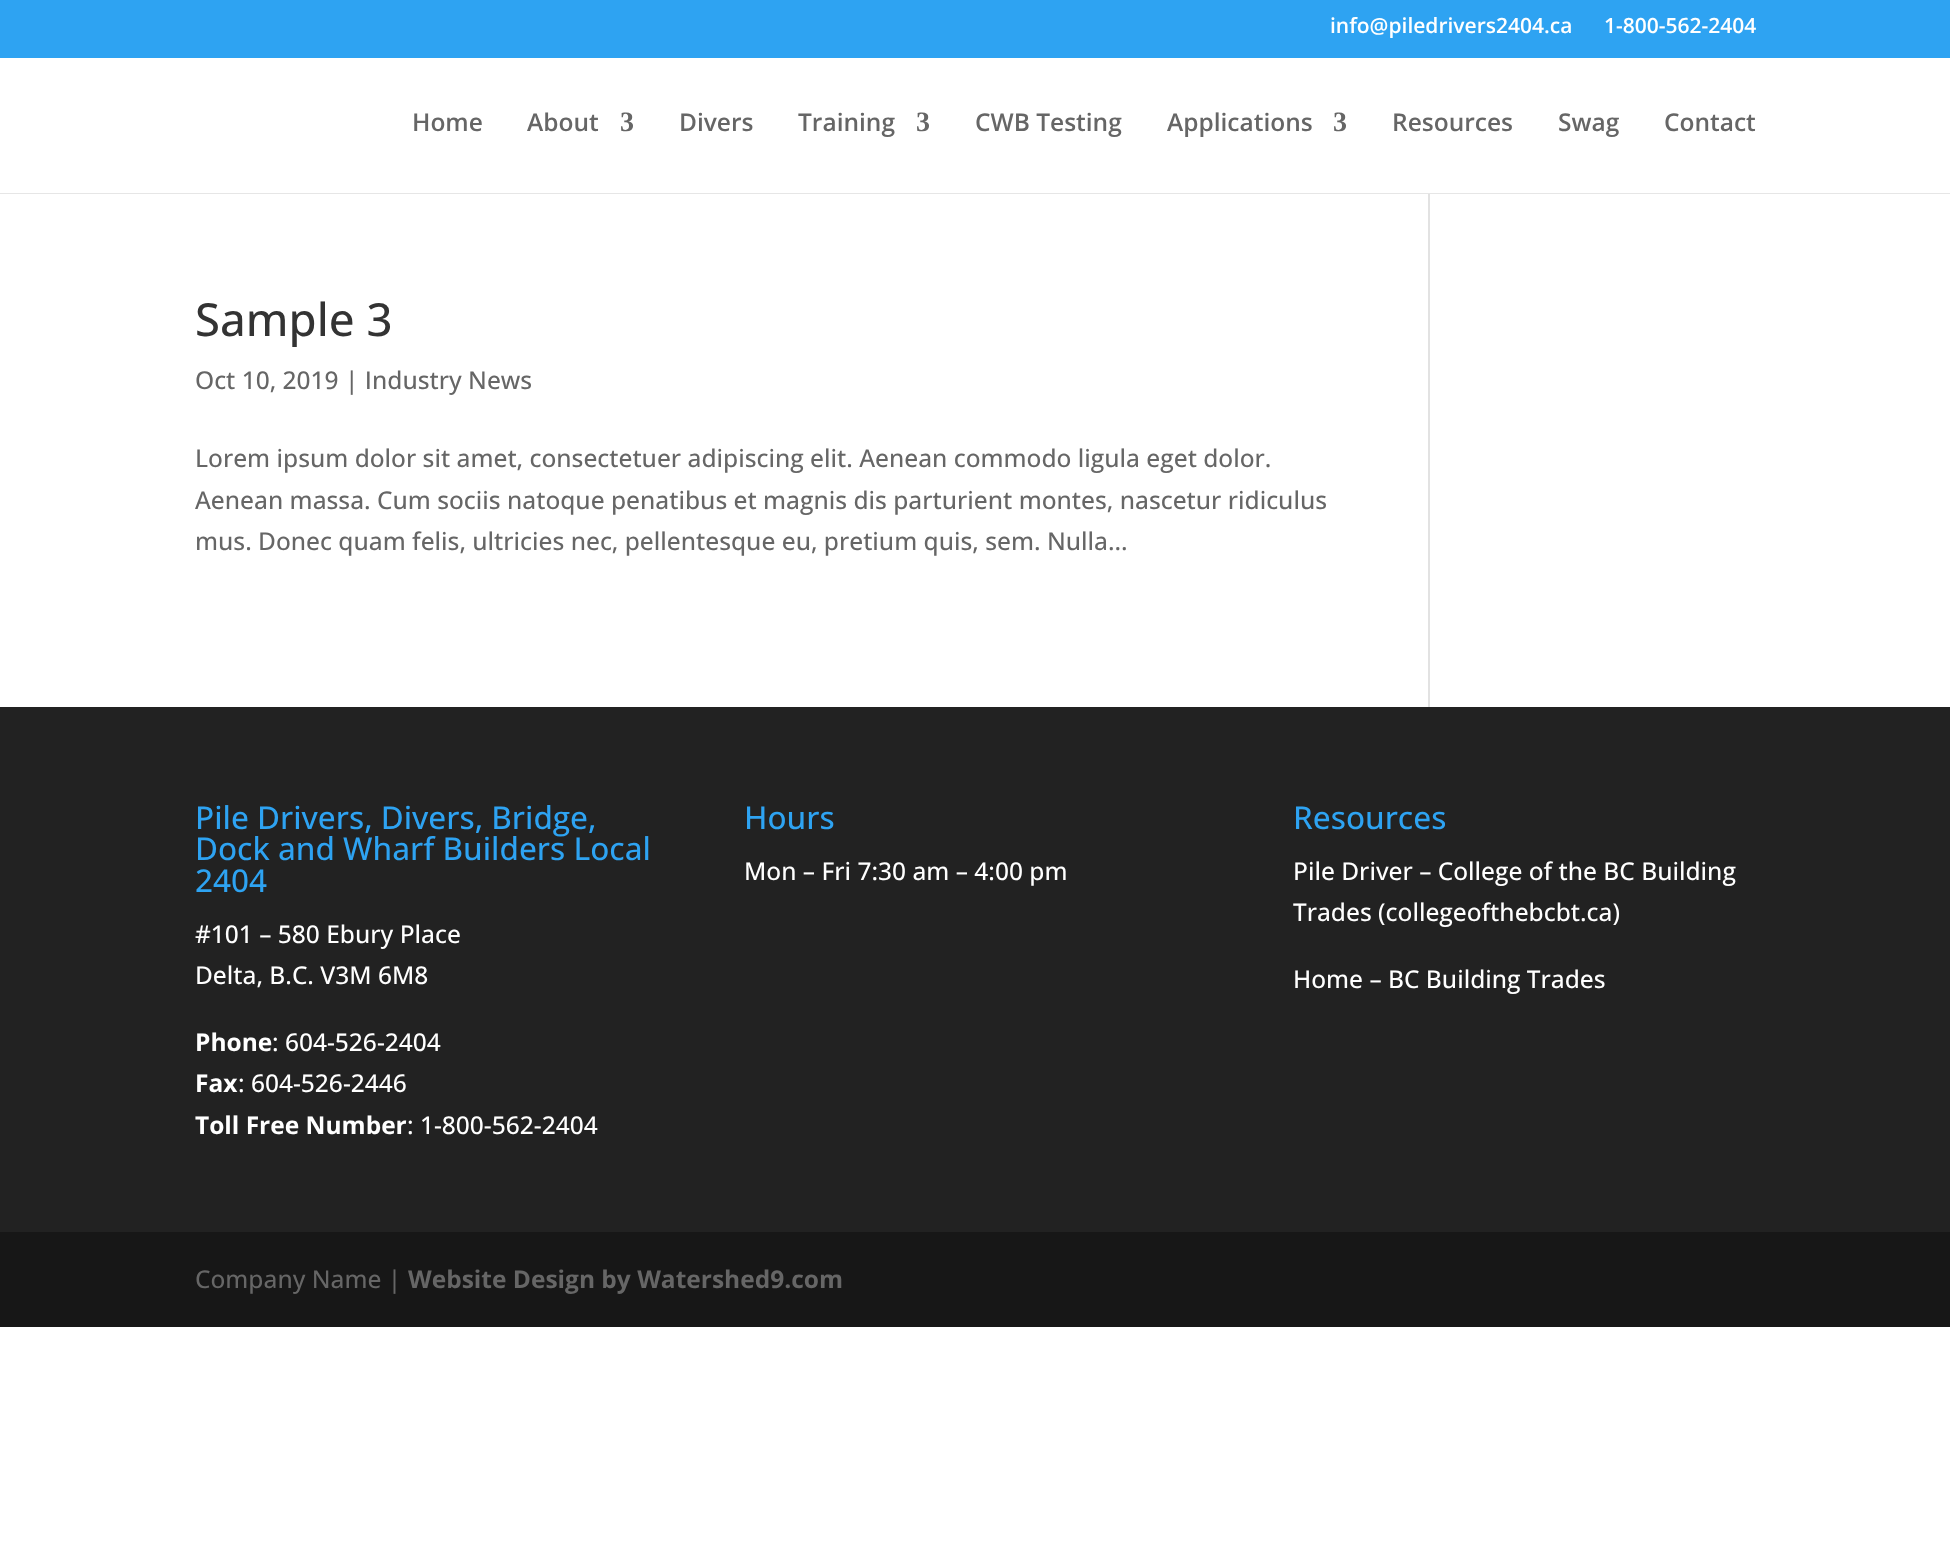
<svg xmlns="http://www.w3.org/2000/svg" width="1950" height="1567" viewBox="0 0 1950 1567">
  <style>
    .t1 { font: 600 21px Open Sans; fill: #fff; }
    .t2 { font: 600 24.5px Open Sans; fill: #666; }
    .t3 { font: bold 28px Liberation Serif; fill: #666; }
    .t4 { font: 500 45.5px Open Sans; fill: #333; }
    .t5 { font: 500 24.5px Open Sans; fill: #666; }
    .t6 { font: 500 31.5px Open Sans; fill: #2ea3f2; }
    .t7 { font: 500 24.5px Open Sans; fill: #fff; }
    .t8 { font: bold 24.5px Open Sans; fill: #fff; }
    .t9 { font: bold 24.5px Open Sans; fill: #666; }
  </style>
  <rect width="100%" height="100%" fill="#fff"/>
  <rect x="0" y="0" width="1950" height="58" fill="#2ea3f2"/>
  <text x="1330" y="33" class="t1">info@piledrivers2404.ca</text>
  <text x="1604" y="33" class="t1">1-800-562-2404</text>
  <rect x="0" y="193" width="1950" height="1" fill="#e6e6e6"/>
  <text x="412" y="131" class="t2">Home</text>
  <text x="527" y="131" class="t2">About</text>
  <text x="620" y="131" class="t3">3</text>
  <text x="679" y="131" class="t2">Divers</text>
  <text x="798" y="131" class="t2">Training</text>
  <text x="916" y="131" class="t3">3</text>
  <text x="975" y="131" class="t2">CWB Testing</text>
  <text x="1167" y="131" class="t2">Applications</text>
  <text x="1333" y="131" class="t3">3</text>
  <text x="1392" y="131" class="t2">Resources</text>
  <text x="1558" y="131" class="t2">Swag</text>
  <text x="1664" y="131" class="t2">Contact</text>
  <text x="195" y="336" class="t4">Sample 3</text>
  <text x="195" y="389" class="t5">Oct 10, 2019 | Industry News</text>
  <text x="195" y="467" class="t5">Lorem ipsum dolor sit amet, consectetuer adipiscing elit. Aenean commodo ligula eget dolor.</text>
  <text x="195" y="509" class="t5">Aenean massa. Cum sociis natoque penatibus et magnis dis parturient montes, nascetur ridiculus</text>
  <text x="195" y="550" class="t5">mus. Donec quam felis, ultricies nec, pellentesque eu, pretium quis, sem. Nulla...</text>
  <rect x="1428" y="194" width="2" height="513" fill="#e2e2e2"/>
  <rect x="0" y="707" width="1950" height="525" fill="#222"/>
  <text x="195" y="829" class="t6">Pile Drivers, Divers, Bridge,</text>
  <text x="195" y="860" class="t6">Dock and Wharf Builders Local</text>
  <text x="195" y="892" class="t6">2404</text>
  <text x="195" y="943" class="t7">#101 – 580 Ebury Place</text>
  <text x="195" y="984" class="t7">Delta, B.C. V3M 6M8</text>
  <text x="195" y="1051" class="t8">Phone</text>
  <text x="272" y="1051" class="t7">: 604-526-2404</text>
  <text x="195" y="1092" class="t8">Fax</text>
  <text x="238" y="1092" class="t7">: 604-526-2446</text>
  <text x="195" y="1134" class="t8">Toll Free Number</text>
  <text x="407" y="1134" class="t7">: 1-800-562-2404</text>
  <text x="744" y="829" class="t6">Hours</text>
  <text x="744" y="880" class="t7">Mon – Fri 7:30 am – 4:00 pm</text>
  <text x="1293" y="829" class="t6">Resources</text>
  <text x="1293" y="880" class="t7">Pile Driver – College of the BC Building</text>
  <text x="1293" y="921" class="t7">Trades (collegeofthebcbt.ca)</text>
  <text x="1293" y="988" class="t7">Home – BC Building Trades</text>
  <rect x="0" y="1232" width="1950" height="95" fill="#171717"/>
  <text x="195" y="1288" class="t5">Company Name |</text>
  <text x="408" y="1288" class="t9">Website Design by Watershed9.com</text>
</svg>
